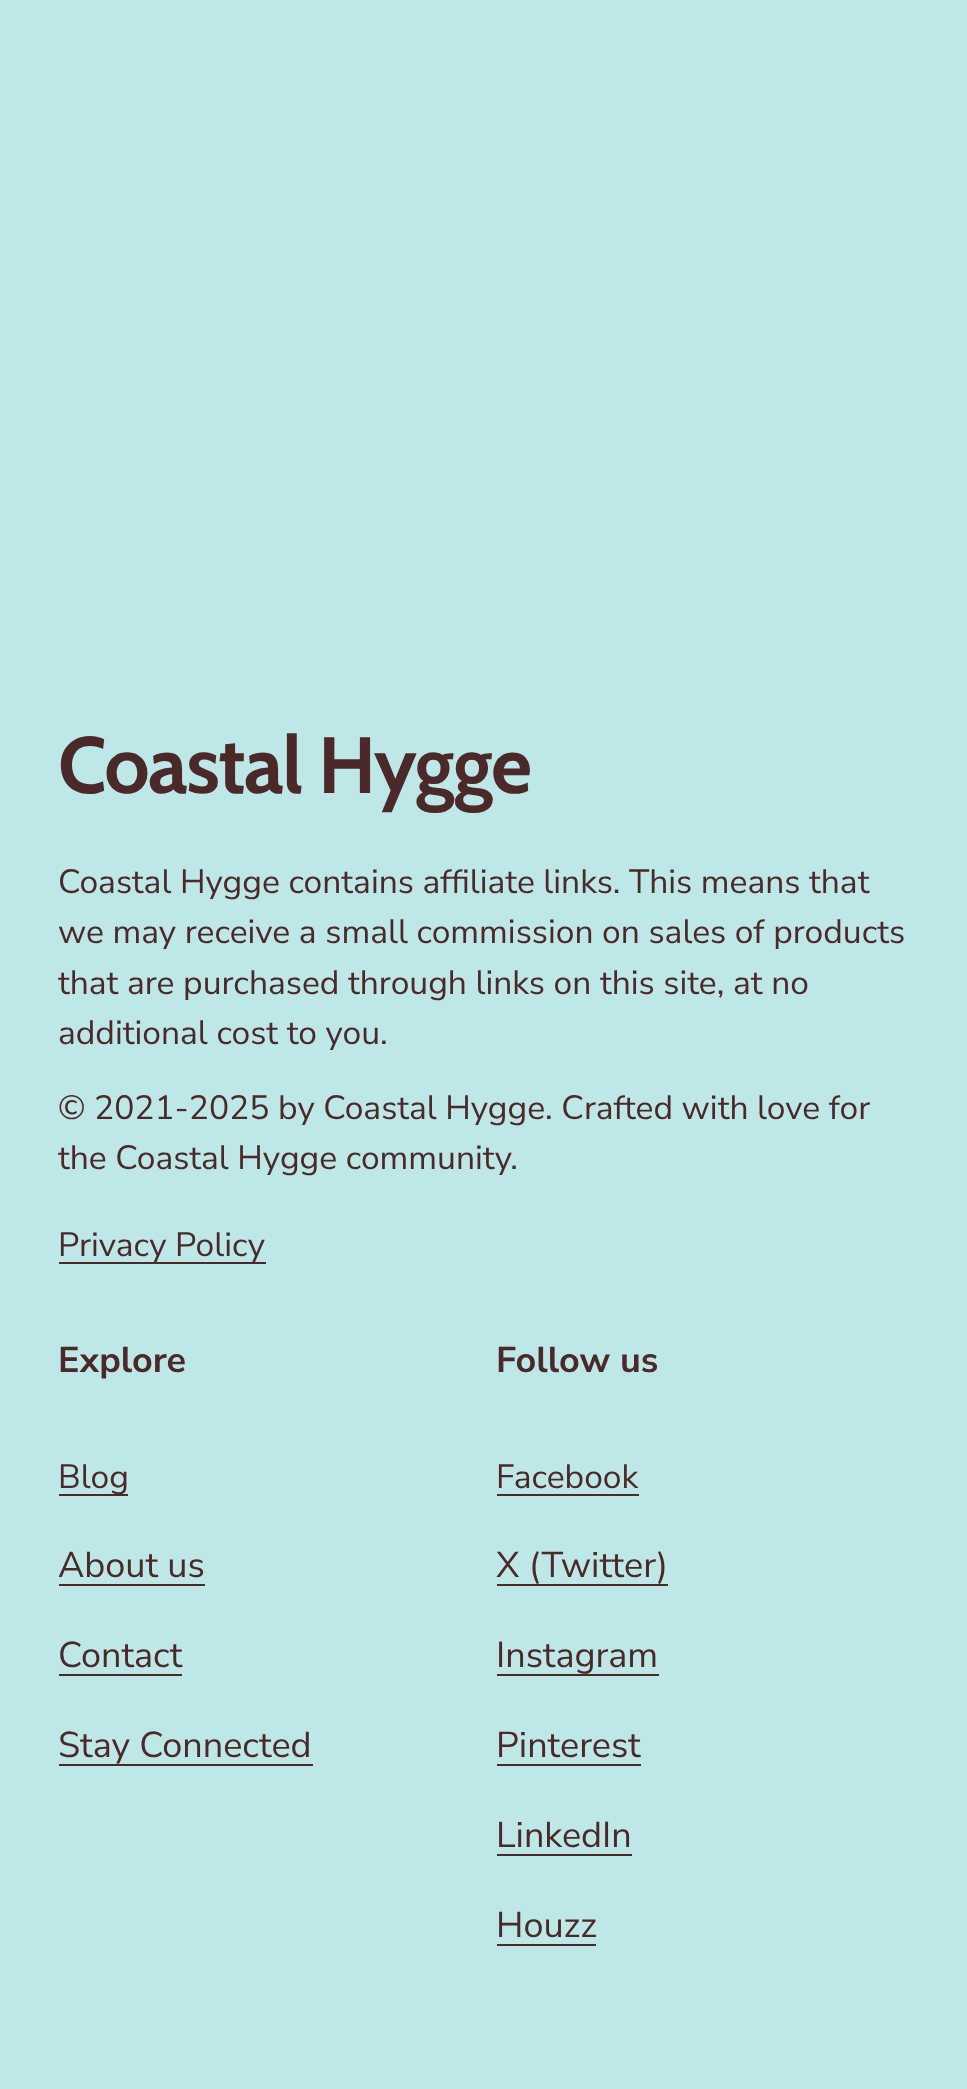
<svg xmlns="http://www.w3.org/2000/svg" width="967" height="2089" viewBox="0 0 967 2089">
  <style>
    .t1 { font: bold 79.75px Cabin; letter-spacing: -1.6px; fill: #4c2929; }
    .t2 { font: 33.6px Nunito Sans; fill: #4c2929; }
    .t3 { font: bold 36px Nunito Sans; fill: #4c2929; }
    .t4 { font: 36px Nunito Sans; fill: #4c2929; }
  </style>
  <rect width="100%" height="100%" fill="#bee7e7"/>
  <text x="58" y="793" class="t1">Coastal Hygge</text>
  <text x="58" y="893" class="t2">Coastal Hygge contains affiliate links. This means that</text>
  <text x="58" y="943" class="t2">we may receive a small commission on sales of products</text>
  <text x="58" y="994" class="t2">that are purchased through links on this site, at no</text>
  <text x="58" y="1044" class="t2">additional cost to you.</text>
  <text x="58" y="1119" class="t2">© 2021-2025 by Coastal Hygge. Crafted with love for</text>
  <text x="58" y="1169" class="t2">the Coastal Hygge community.</text>
  <rect x="59" y="1262" width="207" height="2" fill="#4c2929"/>
  <text x="58" y="1256" class="t2">Privacy Policy</text>
  <text x="58" y="1372" class="t3">Explore</text>
  <text x="496" y="1372" class="t3">Follow us</text>
  <rect x="59" y="1494" width="69" height="2" fill="#4c2929"/>
  <text x="58" y="1488" class="t2">Blog</text>
  <text x="58" y="1577" class="t4">About us</text>
  <rect x="59" y="1584" width="146" height="2" fill="#4c2929"/>
  <text x="58" y="1667" class="t4">Contact</text>
  <rect x="59" y="1674" width="123" height="2" fill="#4c2929"/>
  <text x="58" y="1757" class="t4">Stay Connected</text>
  <rect x="59" y="1764" width="254" height="2" fill="#4c2929"/>
  <text x="496" y="1488" class="t2">Facebook</text>
  <rect x="497" y="1494" width="142" height="2" fill="#4c2929"/>
  <text x="496" y="1577" class="t4">X (Twitter)</text>
  <rect x="497" y="1584" width="171" height="2" fill="#4c2929"/>
  <text x="496" y="1667" class="t4">Instagram</text>
  <rect x="497" y="1674" width="162" height="2" fill="#4c2929"/>
  <text x="496" y="1757" class="t4">Pinterest</text>
  <rect x="497" y="1764" width="144" height="2" fill="#4c2929"/>
  <text x="496" y="1847" class="t4">LinkedIn</text>
  <rect x="497" y="1854" width="135" height="2" fill="#4c2929"/>
  <text x="496" y="1937" class="t4">Houzz</text>
  <rect x="497" y="1944" width="99" height="2" fill="#4c2929"/>
</svg>
